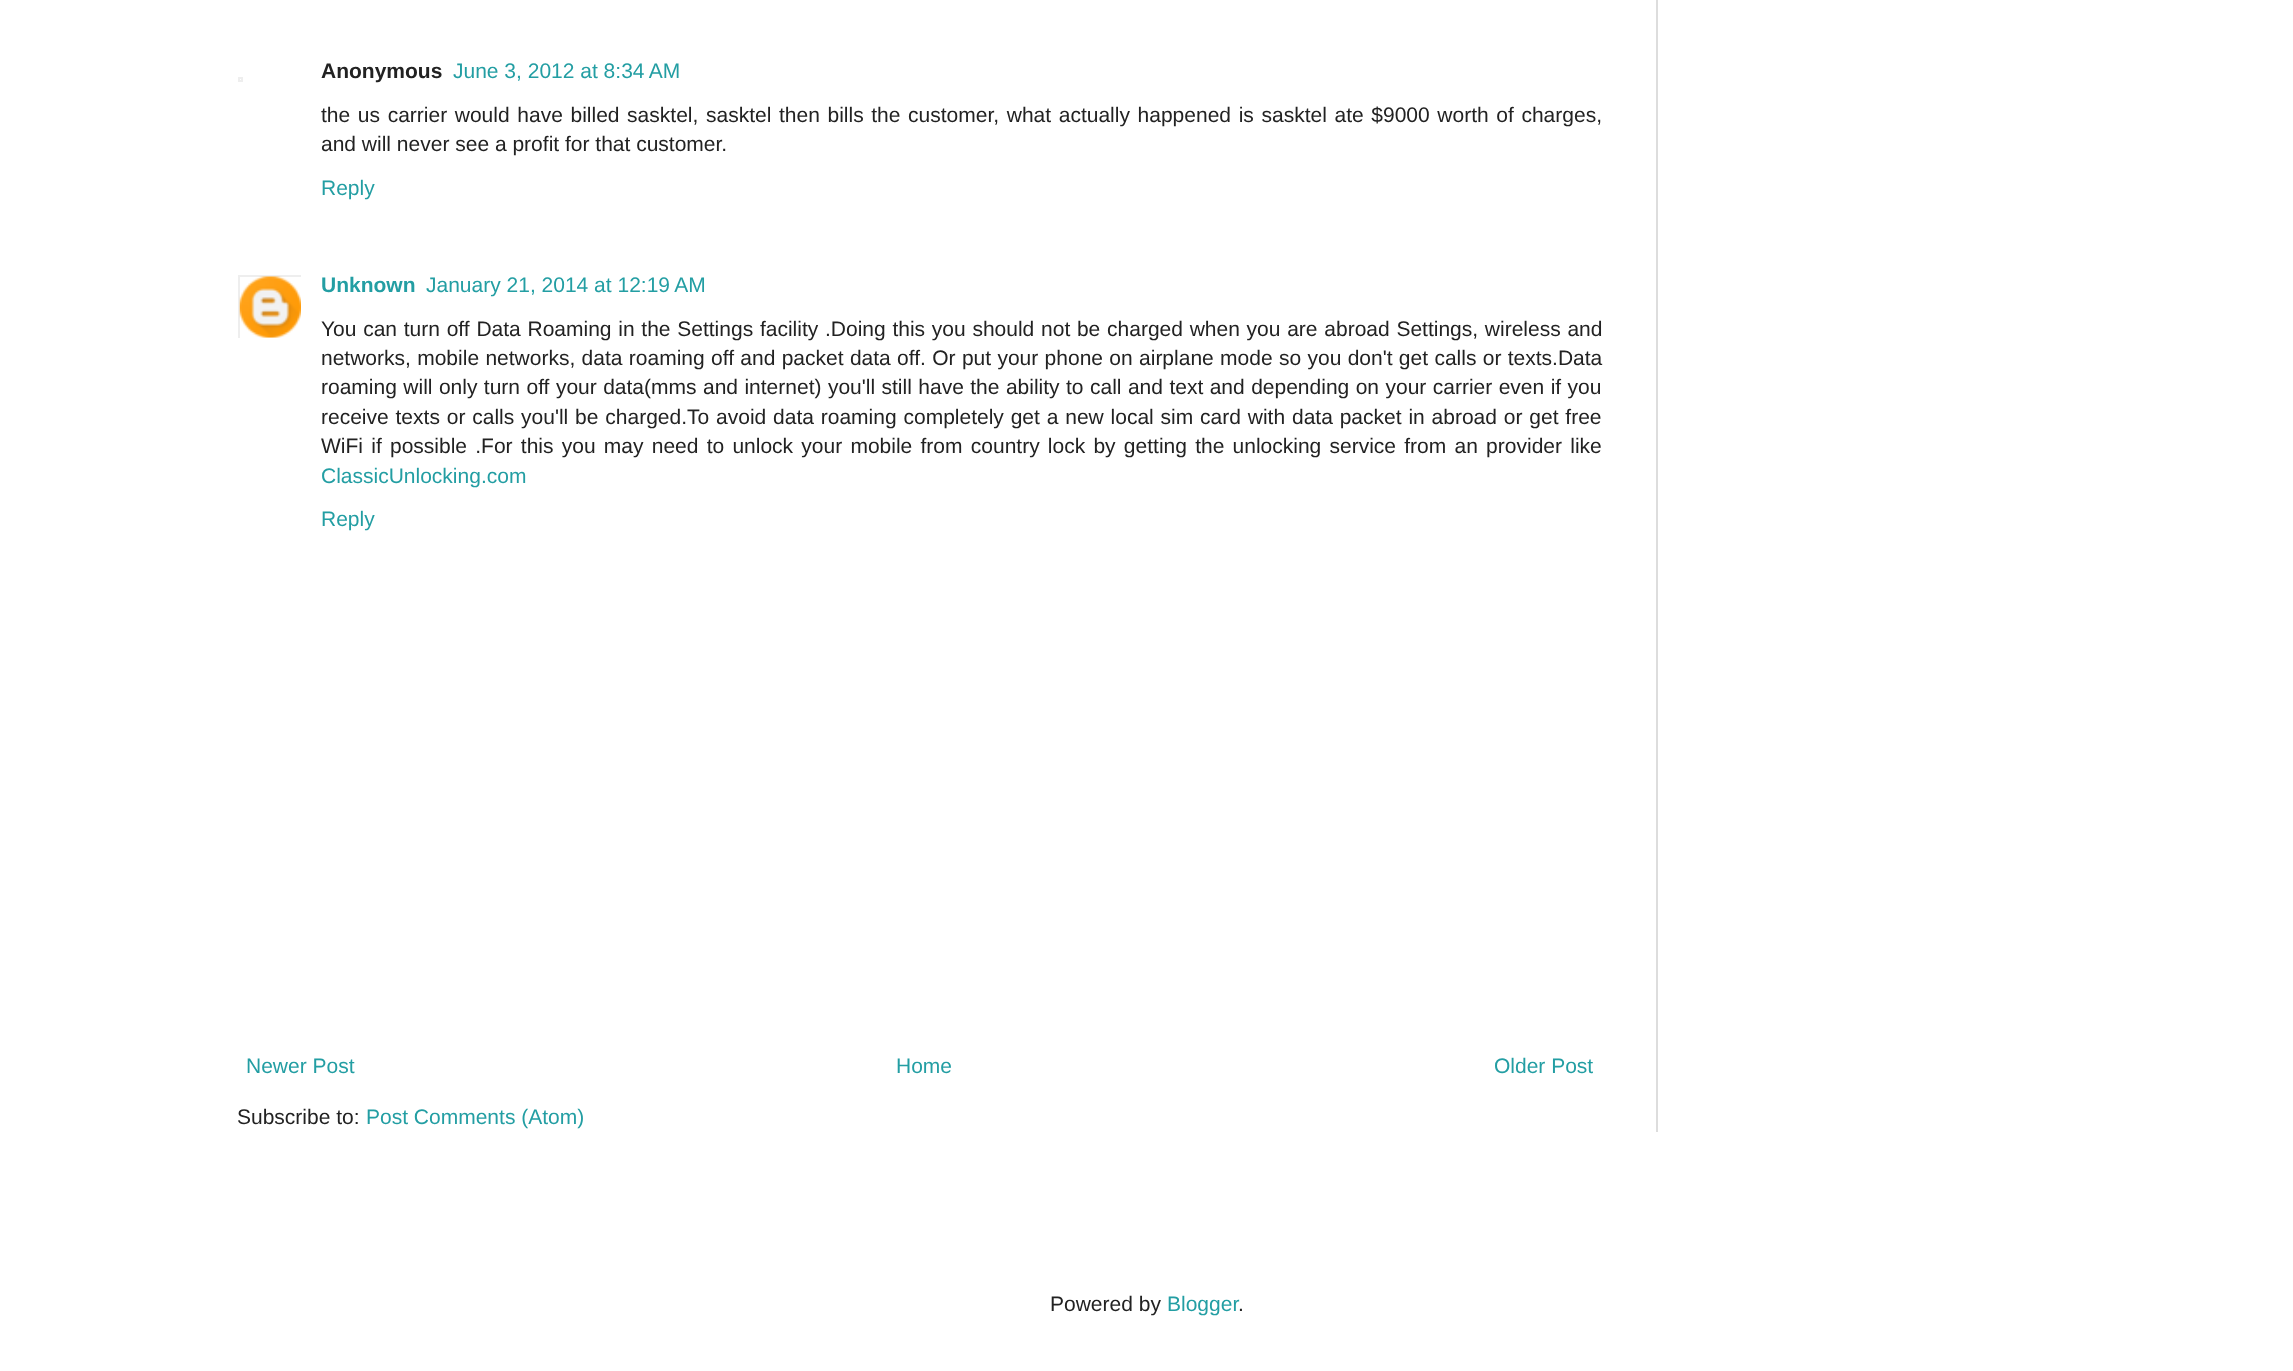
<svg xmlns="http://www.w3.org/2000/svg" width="2293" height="1371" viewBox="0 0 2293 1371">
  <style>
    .t1 { font: bold 21px Liberation Sans; fill: #222; }
    .t2 { font: 21px Liberation Sans; fill: #239ea3; }
    .t3 { font: 21px Liberation Sans; fill: #222; }
    .t4 { font: bold 21px Liberation Sans; fill: #239ea3; }
  </style>
  <defs>
    <clipPath id="clip1"><rect x="238" y="275" width="63" height="63"/></clipPath>
  </defs>
  <rect width="100%" height="100%" fill="#fff"/>
  <rect x="239" y="78" width="3" height="3" fill="none" stroke="#eee" stroke-width="2"/>
  <text x="321" y="78" class="t1">Anonymous</text>
  <text x="453" y="78" class="t2">June 3, 2012 at 8:34 AM</text>
  <text x="321" y="122" word-spacing="1.8" class="t3">the us carrier would have billed sasktel, sasktel then bills the customer, what actually happened is sasktel ate $9000 worth of charges,</text>
  <text x="321" y="151" class="t3">and will never see a profit for that customer.</text>
  <text x="321" y="195" class="t2">Reply</text>
  <g clip-path="url(#clip1)">
    <rect x="239" y="276" width="63" height="63" fill="none" stroke="#eee" stroke-width="2"/>
  </g>
  <image x="239" y="276" width="62" height="62" href="images/1.png"/>
  <text x="321" y="292" class="t4">Unknown</text>
  <text x="426" y="292" class="t2">January 21, 2014 at 12:19 AM</text>
  <text x="321" y="336" word-spacing="0.9" class="t3">You can turn off Data Roaming in the Settings facility .Doing this you should not be charged when you are abroad Settings, wireless and</text>
  <text x="321" y="365" word-spacing="0.5" class="t3">networks, mobile networks, data roaming off and packet data off. Or put your phone on airplane mode so you don't get calls or texts.Data</text>
  <text x="321" y="394" word-spacing="0.6" class="t3">roaming will only turn off your data(mms and internet) you'll still have the ability to call and text and depending on your carrier even if you</text>
  <text x="321" y="424" word-spacing="1" class="t3">receive texts or calls you'll be charged.To avoid data roaming completely get a new local sim card with data packet in abroad or get free</text>
  <text x="321" y="453" word-spacing="2.4" class="t3">WiFi if possible .For this you may need to unlock your mobile from country lock by getting the unlocking service from an provider like</text>
  <text x="321" y="483" class="t2">ClassicUnlocking.com</text>
  <text x="321" y="526" class="t2">Reply</text>
  <text x="246" y="1073" class="t2">Newer Post</text>
  <text x="896" y="1073" class="t2">Home</text>
  <text x="1494" y="1073" class="t2">Older Post</text>
  <text x="237" y="1124" class="t3">Subscribe to:</text>
  <text x="366" y="1124" class="t2">Post Comments (Atom)</text>
  <rect x="1656" y="0" width="2" height="1132" fill="#ddd"/>
  <text x="1050" y="1311" class="t3">Powered by</text>
  <text x="1167" y="1311" class="t2">Blogger</text>
  <text x="1238" y="1311" class="t3">.</text>
</svg>
